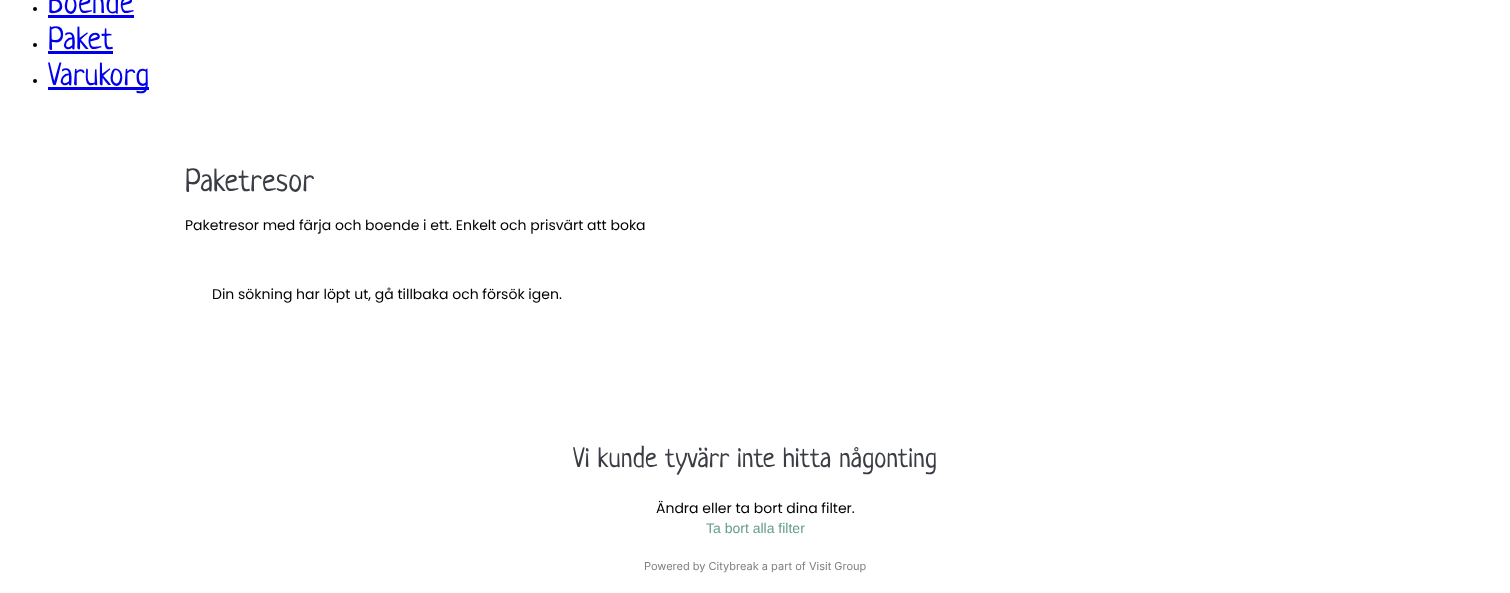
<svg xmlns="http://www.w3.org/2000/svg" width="1510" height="593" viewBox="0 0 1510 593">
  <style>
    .t1 { font: 32px Neucha; fill: #00e; }
    .t2 { font: 32px Neucha; fill: #3b3d44; }
    .t3 { font: 14px Poppins; fill: #000; }
    .t4 { font: 28px Neucha; fill: #3b3d44; }
    .t5 { font: 14px Liberation Sans; fill: #669d8e; }
    .t6 { font: 11px Inter; fill: #7f7f80; }
  </style>
  <rect width="100%" height="100%" fill="#fff"/>
  <circle cx="35" cy="9" r="2" fill="#000"/>
  <text x="48" y="13" class="t1">Boende</text>
  <rect x="48" y="15" width="86" height="3" fill="#00e"/>
  <circle cx="35" cy="45" r="2" fill="#000"/>
  <text x="48" y="49" class="t1">Paket</text>
  <rect x="48" y="51" width="65" height="3" fill="#00e"/>
  <circle cx="35" cy="81" r="2" fill="#000"/>
  <rect x="48" y="87" width="101" height="3" fill="#00e"/>
  <text x="48" y="85" class="t1">Varukorg</text>
  <text x="185" y="191" class="t2">Paketresor</text>
  <text x="185" y="230" class="t3">Paketresor med färja och boende i ett. Enkelt och prisvärt att boka</text>
  <text x="212" y="299" class="t3">Din sökning har löpt ut, gå tillbaka och försök igen.</text>
  <text x="573" y="467" class="t4">Vi kunde tyvärr inte hitta någonting</text>
  <text x="656" y="513" class="t3">Ändra eller ta bort dina filter.</text>
  <text x="706" y="533" class="t5">Ta bort alla filter</text>
  <text x="644" y="570" class="t6">Powered by Citybreak a part of Visit Group</text>
</svg>
